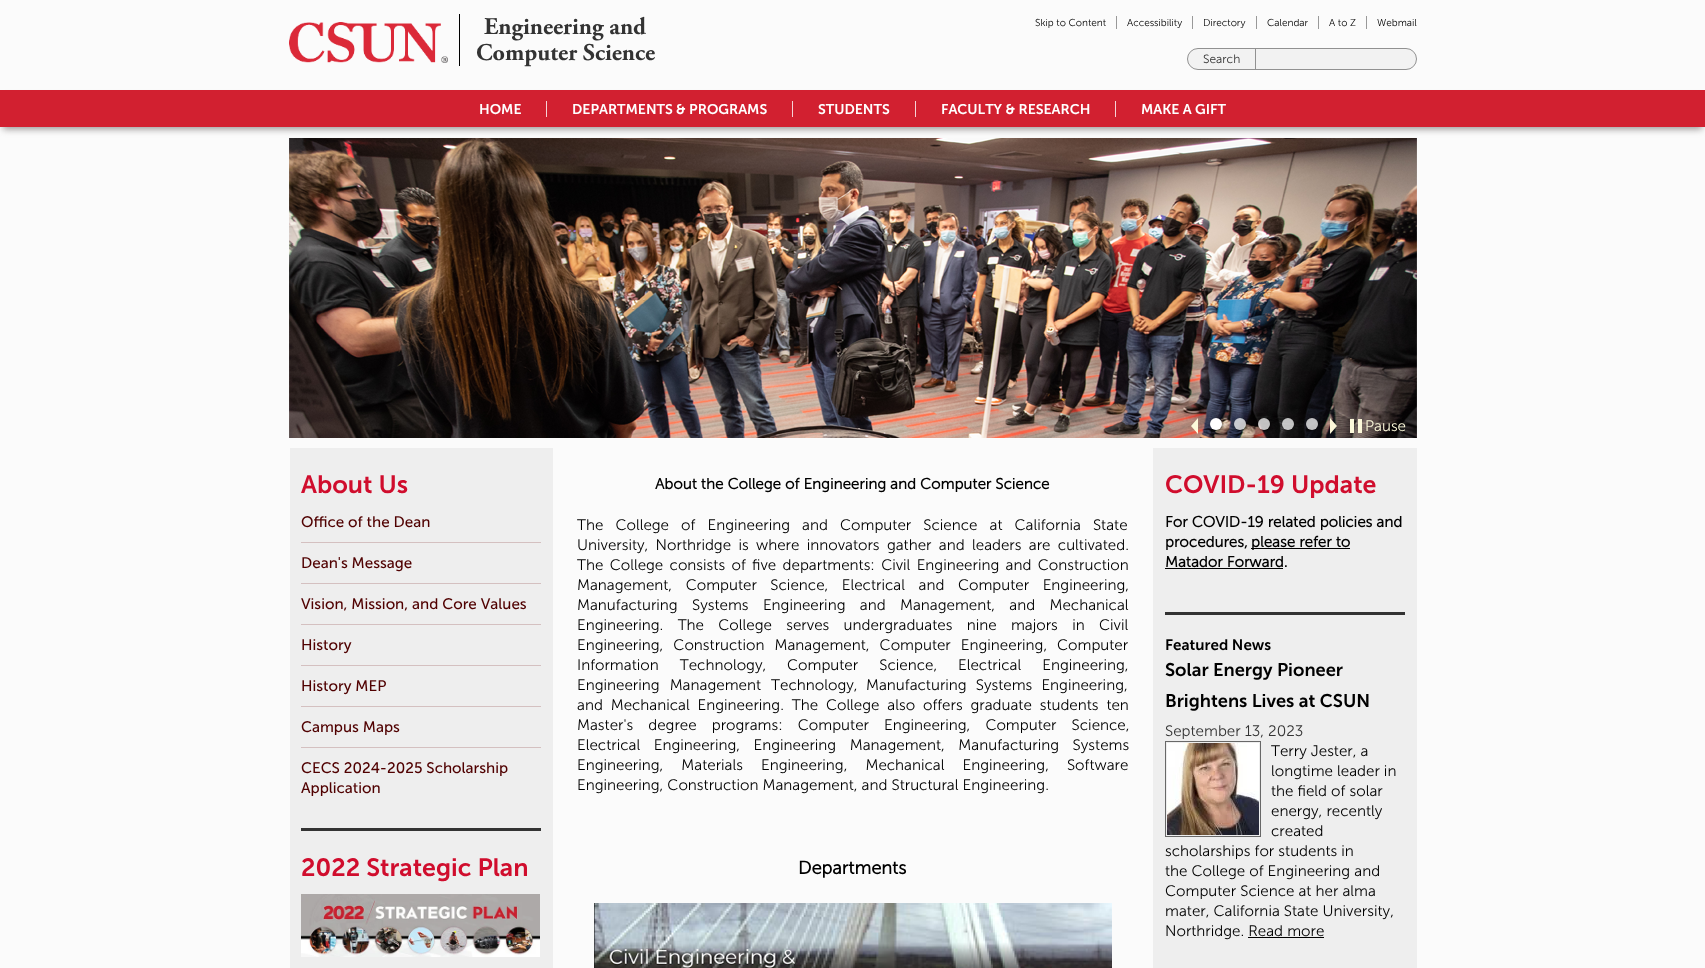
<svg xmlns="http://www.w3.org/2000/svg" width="1705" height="968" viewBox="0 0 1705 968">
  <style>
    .t1 { font: bold 24px Adobe Garamond; fill: #333; }
    .t2 { font: 300 10px Museo Sans; fill: #000; }
    .t3 { font: 300 12px Museo Sans; fill: #333; }
    .t4 { font: 600 14px Museo Sans; fill: #fff; }
    .t5 { font: 300 15.2px Museo Sans; fill: #fcf9da; }
    .t6 { font: 600 25px Museo Sans; fill: #d00d2d; }
    .t7 { font: 15.2px Museo Sans; fill: #500000; }
    .t8 { font: bold 15.2px Museo Sans; fill: #000; }
    .t9 { font: 300 15.2px Museo Sans; fill: #000; }
    .t10 { font: bold 18.25px Museo Sans; fill: #000; }
    .t11 { font: 600 15.2px Museo Sans; fill: #000; }
    .t12 { font: 600 18.25px Museo Sans; fill: #000; }
    .t13 { font: 300 15.2px Museo Sans; fill: #333; }
  </style>
  <defs>
    <clipPath id="clip1"><path d="M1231 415H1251V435H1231ZM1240 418C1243.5 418 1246 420.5 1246 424C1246 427.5 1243.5 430 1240 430C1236.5 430 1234 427.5 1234 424C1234 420.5 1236.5 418 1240 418Z" clip-rule="evenodd"/></clipPath>
    <clipPath id="clip2"><path d="M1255 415H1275V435H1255ZM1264 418C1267.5 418 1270 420.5 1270 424C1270 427.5 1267.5 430 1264 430C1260.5 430 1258 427.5 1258 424C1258 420.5 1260.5 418 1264 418Z" clip-rule="evenodd"/></clipPath>
  </defs>
  <rect width="100%" height="100%" fill="#fbfbfb"/>
  <image x="289" y="22" width="159" height="41" href="images/1.png"/>
  <rect x="459" y="14" width="1" height="52" fill="#000"/>
  <text x="484" y="34" class="t1">Engineering and</text>
  <text x="476" y="60" class="t1">Computer Science</text>
  <text x="1035" y="26" class="t2">Skip to Content</text>
  <rect x="1116" y="16" width="1" height="13" fill="#999"/>
  <text x="1127" y="26" class="t2">Accessibility</text>
  <rect x="1192" y="16" width="1" height="13" fill="#999"/>
  <text x="1203" y="26" class="t2">Directory</text>
  <rect x="1256" y="16" width="1" height="13" fill="#999"/>
  <text x="1267" y="26" class="t2">Calendar</text>
  <rect x="1318" y="16" width="1" height="13" fill="#999"/>
  <text x="1329" y="26" class="t2">A to Z</text>
  <rect x="1366" y="16" width="1" height="13" fill="#999"/>
  <text x="1377" y="26" class="t2">Webmail</text>
  <rect x="1187.5" y="48.5" width="229" height="21" rx="10.5" fill="#f2f2f2" stroke="#919191"/>
  <rect x="1255" y="49" width="1" height="20" fill="#919191"/>
  <text x="1203" y="63" class="t3">Search</text>
  <rect x="3" y="98" width="1699" height="31" fill="#969191" filter="blur(3.5px)"/>
  <rect x="0" y="90" width="1705" height="37" fill="#d22030"/>
  <text x="479" y="114" class="t4">HOME</text>
  <rect x="546" y="101" width="1" height="16" fill="#f6d2d6"/>
  <text x="572" y="114" class="t4">DEPARTMENTS &amp; PROGRAMS</text>
  <rect x="792" y="101" width="1" height="16" fill="#f6d2d6"/>
  <text x="818" y="114" class="t4">STUDENTS</text>
  <rect x="915" y="101" width="1" height="16" fill="#f6d2d6"/>
  <text x="941" y="114" class="t4">FACULTY &amp; RESEARCH</text>
  <rect x="1115" y="101" width="1" height="16" fill="#f6d2d6"/>
  <text x="1141" y="114" class="t4">MAKE A GIFT</text>
  <image x="289" y="138" width="1128" height="300" href="images/2.png"/>
  <path d="M1198 418V434L1191 426Z" fill="#fcf9da"/>
  <rect x="1211" y="419" width="12" height="12" rx="6" fill="#00000080" filter="blur(1px)"/>
  <circle cx="1216" cy="424" r="6" fill="#fff"/>
  <g clip-path="url(#clip1)">
    <rect x="1235" y="419" width="12" height="12" rx="6" fill="#00000080" filter="blur(1px)"/>
  </g>
  <circle cx="1240" cy="424" r="6" fill="#ffffffbf"/>
  <g clip-path="url(#clip2)">
    <rect x="1259" y="419" width="12" height="12" rx="6" fill="#00000080" filter="blur(1px)"/>
  </g>
  <circle cx="1264" cy="424" r="6" fill="#ffffffbf"/>
  <circle cx="1288" cy="424" r="6" fill="#ffffffbf"/>
  <circle cx="1312" cy="424" r="6" fill="#ffffffbf"/>
  <path d="M1330 434V418L1337 426Z" fill="#fcf9da"/>
  <rect x="1358" y="419" width="4" height="14" fill="#fcf9da"/>
  <rect x="1350" y="419" width="4" height="14" fill="#fcf9da"/>
  <text x="1365" y="431" class="t5">Pause</text>
  <image x="290" y="448" width="1127" height="520" href="images/3.png"/>
  <text x="301" y="493" class="t6">About Us</text>
  <text x="301" y="527" class="t7">Office of the Dean</text>
  <rect x="301" y="542" width="240" height="1" fill="#d4c0c0"/>
  <text x="301" y="568" class="t7">Dean's Message</text>
  <rect x="301" y="583" width="240" height="1" fill="#d4c0c0"/>
  <text x="301" y="609" class="t7">Vision, Mission, and Core Values</text>
  <rect x="301" y="624" width="240" height="1" fill="#d4c0c0"/>
  <text x="301" y="650" class="t7">History</text>
  <rect x="301" y="665" width="240" height="1" fill="#d4c0c0"/>
  <text x="301" y="691" class="t7">History MEP</text>
  <rect x="301" y="706" width="240" height="1" fill="#d4c0c0"/>
  <text x="301" y="732" class="t7">Campus Maps</text>
  <rect x="301" y="747" width="240" height="1" fill="#d4c0c0"/>
  <text x="301" y="773" class="t7">CECS 2024-2025 Scholarship</text>
  <text x="301" y="793" class="t7">Application</text>
  <rect x="301" y="828" width="240" height="3" fill="#333"/>
  <text x="301" y="876" class="t6">2022 Strategic Plan</text>
  <image x="301" y="894" width="239" height="63" href="images/4.png"/>
  <text x="655" y="489" class="t8">About the College of Engineering and Computer Science</text>
  <text x="577" y="530" word-spacing="8" class="t9">The College of Engineering and Computer Science at California State</text>
  <text x="577" y="550" word-spacing="3.25" class="t9">University, Northridge is where innovators gather and leaders are cultivated.</text>
  <text x="577" y="570" word-spacing="2.25" class="t9">The College consists of five departments: Civil Engineering and Construction</text>
  <text x="577" y="590" word-spacing="9.5" class="t9">Management, Computer Science, Electrical and Computer Engineering,</text>
  <text x="577" y="610" word-spacing="10.25" class="t9">Manufacturing Systems Engineering and Management, and Mechanical</text>
  <text x="577" y="630" word-spacing="10.25" class="t9">Engineering. The College serves undergraduates nine majors in Civil</text>
  <text x="577" y="650" word-spacing="6" class="t9">Engineering, Construction Management, Computer Engineering,</text>
  <text x="1057" y="650" class="t9">Computer</text>
  <text x="577" y="670" word-spacing="17" class="t9">Information Technology,</text>
  <text x="787" y="670" word-spacing="17" class="t9">Computer Science,</text>
  <text x="958" y="670" word-spacing="17" class="t9">Electrical Engineering,</text>
  <text x="577" y="690" word-spacing="6" class="t9">Engineering Management Technology,</text>
  <text x="866" y="690" word-spacing="5" class="t9">Manufacturing Systems Engineering,</text>
  <text x="577" y="710" word-spacing="3.75" class="t9">and Mechanical Engineering. The College also offers graduate students ten</text>
  <text x="577" y="730" word-spacing="11" class="t9">Master's degree programs: Computer Engineering, Computer Science,</text>
  <text x="577" y="750" word-spacing="9.5" class="t9">Electrical Engineering, Engineering Management, Manufacturing Systems</text>
  <text x="577" y="770" word-spacing="14" class="t9">Engineering, Materials Engineering, Mechanical Engineering, Software</text>
  <text x="577" y="790" class="t9">Engineering, Construction Management, and Structural Engineering.</text>
  <text x="798" y="874" class="t10">Departments</text>
  <image x="594" y="903" width="518" height="65" href="images/5.png"/>
  <text x="1165" y="493" class="t6">COVID-19 Update</text>
  <text x="1165" y="527" class="t8">For COVID-19 related policies and</text>
  <text x="1165" y="547" class="t8">procedures,</text>
  <rect x="1251" y="548" width="99" height="1" fill="#000"/>
  <text x="1251" y="547" class="t8">please refer to</text>
  <text x="1165" y="567" class="t8">Matador Forward.</text>
  <rect x="1165" y="568" width="118" height="1" fill="#000"/>
  <rect x="1165" y="612" width="240" height="3" fill="#333"/>
  <text x="1165" y="650" class="t11">Featured News</text>
  <text x="1165" y="676" class="t12">Solar Energy Pioneer</text>
  <text x="1165" y="707" class="t12">Brightens Lives at CSUN</text>
  <text x="1165" y="736" class="t13">September 13, 2023</text>
  <rect x="1165.5" y="741.5" width="95" height="95" fill="none" stroke="#686868"/>
  <image x="1167" y="743" width="92" height="92" href="images/6.png"/>
  <text x="1271" y="756" class="t9">Terry Jester, a</text>
  <text x="1271" y="776" class="t9">longtime leader in</text>
  <text x="1271" y="796" class="t9">the field of solar</text>
  <text x="1271" y="816" class="t9">energy, recently</text>
  <text x="1271" y="836" class="t9">created</text>
  <text x="1165" y="856" class="t9">scholarships for students in</text>
  <text x="1165" y="876" class="t9">the College of Engineering and</text>
  <text x="1165" y="896" class="t9">Computer Science at her alma</text>
  <text x="1165" y="916" class="t9">mater, California State University,</text>
  <text x="1165" y="936" class="t9">Northridge. Read more</text>
  <rect x="1248" y="937" width="76" height="1" fill="#000"/>
</svg>
